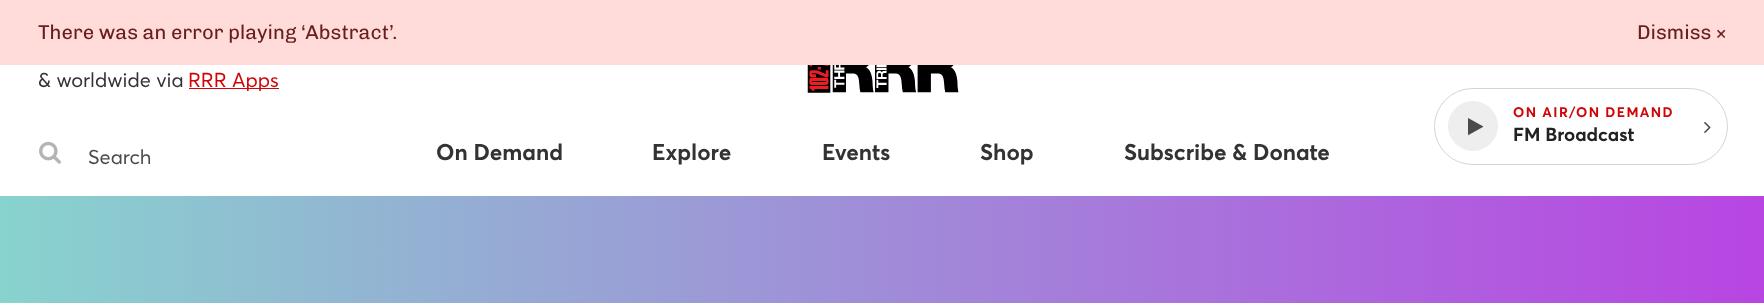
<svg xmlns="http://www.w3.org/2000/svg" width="1764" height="303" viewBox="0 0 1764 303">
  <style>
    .t1 { font: 20px Chivo; fill: #691d1d; }
    .t2 { font: 20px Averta; fill: #333; }
    .t3 { font: 20px Averta; fill: #cf0607; }
    .t4 { font: 20px Averta; fill: #4a4a4a; }
    .t5 { font: bold 13.75px Averta; letter-spacing: 1.4px; fill: #cf0607; }
    .t6 { font: bold 18.75px Averta; fill: #222; }
    .t7 { font: bold 22.5px Averta; fill: #333; }
  </style>
  <defs>
    <linearGradient id="g1" gradientUnits="userSpaceOnUse" x1="0" y1="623" x2="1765" y2="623"><stop offset="0" stop-color="#88d3ce"/><stop offset="1" stop-color="#b845e2"/></linearGradient>
  </defs>
  <rect width="100%" height="100%" fill="#fff"/>
  <rect x="0" y="0" width="1764" height="65" fill="#ffdcd9"/>
  <text x="38" y="39" class="t1">There was an error playing ‘Abstract’.</text>
  <text x="1637" y="39" class="t1">Dismiss</text>
  <text x="1715" y="39" class="t1">×</text>
  <text x="38" y="87" class="t2">&amp; worldwide via</text>
  <rect x="189" y="88" width="90" height="1" fill="#cf0607"/>
  <text x="188" y="87" class="t3">RRR Apps</text>
  <image x="39" y="141" width="22" height="23" href="images/1.png"/>
  <text x="88" y="164" class="t4">Search</text>
  <image x="807" y="65" width="152" height="28" href="images/2.png"/>
  <rect x="1434.5" y="88.5" width="293" height="76" rx="38" fill="none" stroke="#d4d4d4"/>
  <circle cx="1473" cy="126" r="24.5" fill="#eee" stroke="#eee"/>
  <image x="1468" y="118" width="16" height="18" href="images/3.png"/>
  <text x="1513" y="117" class="t5">ON AIR/ON DEMAND</text>
  <text x="1513" y="141" class="t6">FM Broadcast</text>
  <image x="1704" y="122" width="7" height="11" href="images/4.png"/>
  <text x="436" y="160" class="t7">On Demand</text>
  <text x="652" y="160" class="t7">Explore</text>
  <text x="822" y="160" class="t7">Events</text>
  <text x="980" y="160" class="t7">Shop</text>
  <text x="1124" y="160" class="t7">Subscribe &amp; Donate</text>
  <rect x="0" y="196" width="1764" height="107" fill="url(#g1)"/>
</svg>
